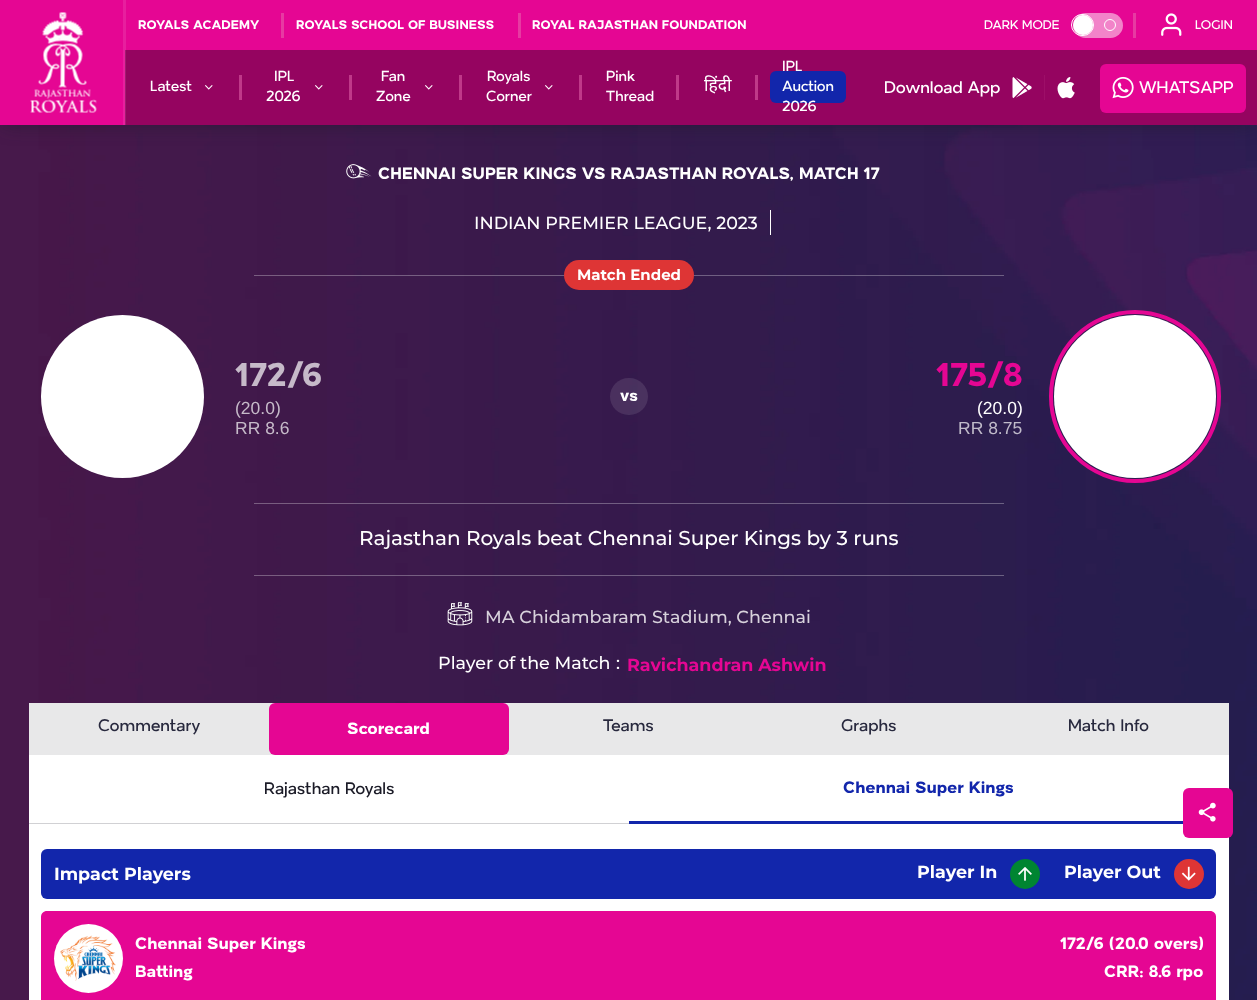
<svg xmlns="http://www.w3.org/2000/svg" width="1257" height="1000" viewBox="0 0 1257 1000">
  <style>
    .t1 { font: bold 15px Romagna; fill: #fff; }
    .t2 { font: 15px Romagna; fill: #fff; }
    .t3 { font: 17.5px Romagna; fill: #fff; }
    .t4 { font: 17.5px Noto Sans; fill: #fff; }
    .t5 { font: 20px Romagna; fill: #fff; }
    .t6 { font: bold 20px Romagna; fill: #fff; }
    .t7 { font: 500 17.5px Montserrat; fill: #fff; }
    .t8 { font: bold 15px Montserrat; fill: #fff; }
    .t9 { font: bold 40px Romagna; fill: #c6bac9; }
    .t10 { font: 17.5px Liberation Sans; fill: #c6bac9; }
    .t11 { font: bold 40px Romagna; fill: #e50693; }
    .t12 { font: 17.5px Liberation Sans; fill: #fff; }
    .t13 { font: 17.5px Liberation Sans; fill: #c0bbca; }
    .t14 { font: 500 20px Montserrat; fill: #fff; }
    .t15 { font: 500 17.5px Montserrat; fill: #d7d1db; }
    .t16 { font: bold 17.5px Montserrat; fill: #e50693; }
    .t17 { font: 20px Romagna; fill: #28293e; }
    .t18 { font: 20px Romagna; fill: #1b1b27; }
    .t19 { font: bold 20px Romagna; fill: #1226ab; }
    .t20 { font: bold 17.5px Montserrat; fill: #fff; }
  </style>
  <rect width="100%" height="100%" fill="#fff"/>
  <image x="0" y="125" width="1257" height="875" href="images/7.png"/>
  <rect x="3" y="3" width="1252" height="120" fill="#1b1b2799" filter="blur(10px)"/>
  <rect x="0" y="0" width="1257" height="125" fill="#e50693"/>
  <image x="30" y="12" width="67" height="101" href="images/1.png"/>
  <rect x="125" y="50" width="1132" height="75" fill="#950460"/>
  <rect x="123" y="0" width="3" height="125" fill="#ffffff1a"/>
  <text x="138" y="29" class="t1">ROYALS ACADEMY</text>
  <rect x="281" y="13" width="3" height="25" fill="#e73aa2"/>
  <text x="296" y="29" class="t1">ROYALS SCHOOL OF BUSINESS</text>
  <rect x="518" y="13" width="3" height="25" fill="#e73aa2"/>
  <text x="532" y="29" class="t1">ROYAL RAJASTHAN FOUNDATION</text>
  <text x="984" y="29" class="t2">DARK MODE</text>
  <rect x="1073" y="13" width="50" height="25" rx="12.5" fill="#f283c9"/>
  <rect x="1071.5" y="14.5" width="22" height="21" rx="10.5" fill="none" stroke="#fff"/>
  <circle cx="1083" cy="25" r="10" fill="#fff"/>
  <circle cx="1110" cy="25" r="5.5" fill="none" stroke="#fff"/>
  <rect x="1133" y="13" width="3" height="25" fill="#e73aa2"/>
  <image x="1161" y="13" width="21" height="23" href="images/2.png"/>
  <text x="1195" y="29" class="t2">LOGIN</text>
  <text x="150" y="91" class="t3">Latest</text>
  <image x="205" y="85" width="8" height="5" href="images/3.png"/>
  <rect x="239" y="75" width="3" height="25" fill="#bf3989"/>
  <text x="274" y="81" class="t3">IPL</text>
  <image x="315" y="85" width="8" height="5" href="images/3.png"/>
  <text x="266" y="101" class="t3">2026</text>
  <rect x="349" y="75" width="3" height="25" fill="#bf3989"/>
  <text x="381" y="81" class="t3">Fan</text>
  <image x="425" y="85" width="8" height="5" href="images/3.png"/>
  <text x="376" y="101" class="t3">Zone</text>
  <rect x="459" y="75" width="3" height="25" fill="#bf3989"/>
  <text x="487" y="81" class="t3">Royals</text>
  <image x="545" y="85" width="8" height="5" href="images/3.png"/>
  <text x="486" y="101" class="t3">Corner</text>
  <rect x="579" y="75" width="3" height="25" fill="#bf3989"/>
  <text x="606" y="81" class="t3">Pink</text>
  <text x="606" y="101" class="t3">Thread</text>
  <rect x="676" y="75" width="3" height="25" fill="#bf3989"/>
  <text x="704" y="91" class="t4">हिंदी</text>
  <rect x="755" y="75" width="3" height="25" fill="#bf3989"/>
  <text x="782" y="71" class="t3">IPL</text>
  <rect x="770" y="71" width="76" height="32" rx="6" fill="#1226ab"/>
  <text x="782" y="91" class="t3">Auction</text>
  <text x="782" y="111" class="t3">2026</text>
  <text x="884" y="93" class="t5">Download App</text>
  <image x="1012" y="77" width="20" height="22" href="images/4.png"/>
  <rect x="1044" y="75" width="1" height="25" fill="#9d0f68"/>
  <image x="1057" y="77" width="18" height="22" href="images/5.png"/>
  <rect x="1100" y="64" width="146" height="49" rx="6" fill="#e50693"/>
  <image x="1112" y="76" width="22" height="23" href="images/6.png"/>
  <text x="1139" y="93" class="t5">WHATSAPP</text>
  <image x="346" y="164" width="26" height="15" href="images/8.png"/>
  <text x="378" y="179" class="t6">CHENNAI SUPER KINGS VS RAJASTHAN ROYALS, MATCH 17</text>
  <text x="474" y="229" class="t7">INDIAN PREMIER LEAGUE, 2023</text>
  <rect x="770" y="210" width="1" height="25" fill="#fff"/>
  <rect x="254" y="275" width="750" height="1" fill="#ffffff4d"/>
  <rect x="564" y="260" width="130" height="30" rx="15" fill="#de3535"/>
  <text x="577" y="280" class="t8">Match Ended</text>
  <circle cx="122.5" cy="396.5" r="81.5" fill="#fff"/>
  <text x="235" y="386" class="t9">172/6</text>
  <text x="235" y="414" class="t10">(20.0)</text>
  <text x="235" y="434" class="t10">RR 8.6</text>
  <rect x="610" y="378" width="38" height="37" rx="18.5" fill="#ffffff1a"/>
  <text x="620" y="401" class="t6">vs</text>
  <text x="936" y="386" class="t11">175/8</text>
  <text x="977" y="414" class="t12">(20.0)</text>
  <text x="958" y="434" class="t13">RR 8.75</text>
  <rect x="1054" y="315" width="162" height="163" rx="81" fill="#fff"/>
  <rect x="1051" y="312" width="168" height="169" rx="84" fill="none" stroke="#e50693" stroke-width="4"/>
  <rect x="254" y="503" width="750" height="1" fill="#ffffff4d"/>
  <text x="359" y="545" class="t14">Rajasthan Royals beat Chennai Super Kings by 3 runs</text>
  <rect x="254" y="575" width="750" height="1" fill="#ffffff4d"/>
  <image x="447" y="602" width="26" height="24" href="images/9.png"/>
  <text x="485" y="623" class="t15">MA Chidambaram Stadium, Chennai</text>
  <text x="438" y="669" class="t7">Player of the Match</text>
  <text x="616" y="669" class="t7">:</text>
  <text x="627" y="671" class="t16">Ravichandran Ashwin</text>
  <rect x="29" y="755" width="1200" height="245" fill="#fff"/>
  <rect x="29" y="703" width="1200" height="52" fill="#e8e8e9"/>
  <text x="98" y="731" class="t17">Commentary</text>
  <rect x="269" y="703" width="240" height="52" rx="6" fill="#e50693"/>
  <text x="347" y="734" class="t6">Scorecard</text>
  <text x="603" y="731" class="t17">Teams</text>
  <text x="841" y="731" class="t17">Graphs</text>
  <text x="1068" y="731" class="t17">Match Info</text>
  <rect x="29" y="823" width="600" height="1" fill="#d1d1d4"/>
  <text x="264" y="794" class="t18">Rajasthan Royals</text>
  <rect x="629" y="821" width="554" height="3" fill="#1226ab"/>
  <text x="843" y="793" class="t19">Chennai Super Kings</text>
  <rect x="41" y="849" width="1175" height="50" rx="6" fill="#1226ab"/>
  <text x="54" y="880" class="t20">Impact Players</text>
  <text x="917" y="878" class="t20">Player In</text>
  <circle cx="1025" cy="874" r="15" fill="#008531"/>
  <image x="1018" y="867" width="14" height="14" href="images/10.png"/>
  <text x="1064" y="878" class="t20">Player Out</text>
  <circle cx="1189" cy="874" r="15" fill="#de3535"/>
  <image x="1181" y="866" width="15" height="15" href="images/11.png"/>
  <path d="M47 911H1210C1213.5 911 1216 913.5 1216 917V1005H41V917C41 913.5 43.5 911 47 911Z" fill="#e50693"/>
  <circle cx="88.5" cy="958.5" r="34.5" fill="#fff"/>
  <image x="60" y="935" width="56" height="46" href="images/12.png"/>
  <text x="135" y="949" class="t6">Chennai Super Kings</text>
  <text x="135" y="977" class="t6">Batting</text>
  <text x="1060" y="949" class="t6">172/6 (20.0 overs)</text>
  <text x="1104" y="977" class="t6">CRR: 8.6 rpo</text>
  <rect x="1183" y="788" width="50" height="50" rx="6" fill="#e50693"/>
  <image x="1198" y="802" width="18" height="20" href="images/13.png"/>
</svg>
